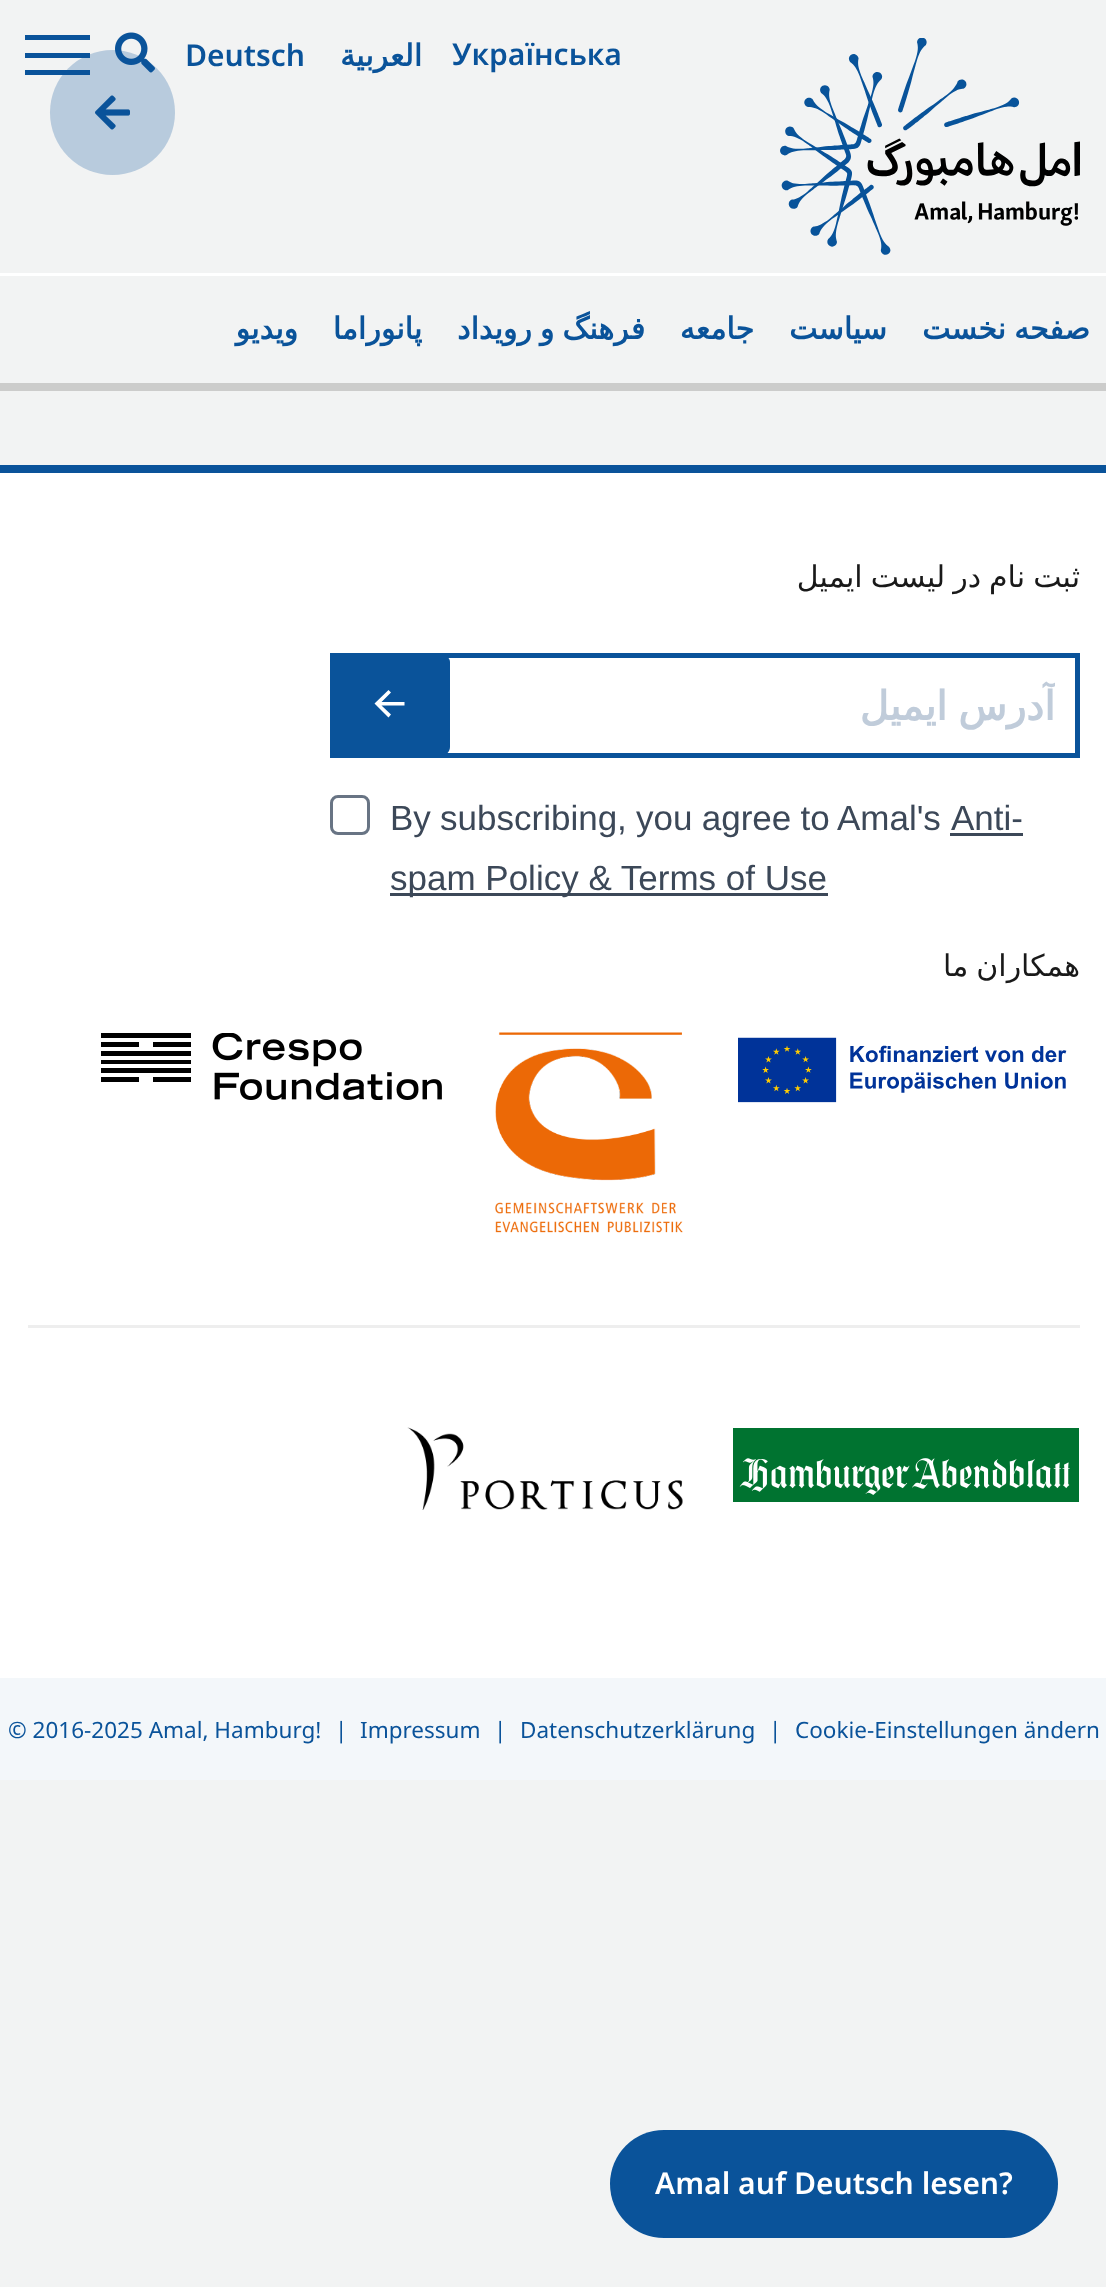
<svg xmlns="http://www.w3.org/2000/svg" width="1106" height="2287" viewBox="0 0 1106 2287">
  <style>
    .t1 { font: 600 30px Noto Sans; fill: #0a539a; }
    .t2 { font: bold 30px DejaVu Sans; direction: rtl; fill: #0a539a; }
    .t3 { font: 30px DejaVu Sans; direction: rtl; fill: #191919; }
    .t4 { font: bold 40px DejaVu Sans; direction: rtl; fill: #c0ccda; }
    .t5 { font: 35px Liberation Sans; fill: #3c4858; }
    .t6 { font: 22.5px Noto Sans; fill: #0a539a; }
    .t7 { font: 600 30px Noto Sans; fill: #fff; }
  </style>
  <defs>
    <clipPath id="clip1"><rect x="355" y="678" width="700" height="55"/></clipPath>
  </defs>
  <rect width="100%" height="100%" fill="#f2f3f3"/>
  <rect x="25" y="53" width="65" height="5" fill="#0a539a"/>
  <rect x="25" y="70" width="65" height="5" fill="#0a539a"/>
  <image x="115" y="32" width="40" height="41" href="images/3.png"/>
  <circle cx="112.5" cy="112.5" r="62.5" fill="#0a539a40"/>
  <image x="95" y="95" width="35" height="35" href="images/1.png"/>
  <rect x="0" y="273" width="1106" height="3" fill="#fff"/>
  <image x="780" y="38" width="300" height="217" href="images/2.png"/>
  <rect x="0" y="383" width="1106" height="8" fill="#cccccb"/>
  <rect x="25" y="35" width="65" height="5" fill="#0a539a"/>
  <text x="185" y="66" class="t1">Deutsch</text>
  <text x="422" y="66" class="t2">العربية</text>
  <text x="452" y="65" class="t1">Українська</text>
  <text x="298" y="339" class="t2">ویدیو</text>
  <text x="422" y="339" class="t2">پانوراما</text>
  <text x="645" y="339" word-spacing="-1.5" class="t2">فرهنگ و رویداد</text>
  <text x="754" y="339" class="t2">جامعه</text>
  <text x="887" y="339" class="t2">سیاست</text>
  <text x="1090" y="339" word-spacing="-1.5" class="t2">صفحه نخست</text>
  <rect x="0" y="473" width="1106" height="1205" fill="#fff"/>
  <rect x="0" y="465" width="1106" height="8" fill="#0a539a"/>
  <text x="1080" y="587" word-spacing="-1.5" class="t3">ثبت نام در لیست ایمیل</text>
  <rect x="332.5" y="655.5" width="745" height="100" fill="none" stroke="#0a539a" stroke-width="5"/>
  <path d="M442 755H337C333 755 330 752 330 747V662C330 658 333 655 337 655H442C446 655 450 658 450 662V747C450 752 446 755 442 755Z" fill="#0a539a"/>
  <path d="M388.5 717.5L374.5 703.5L388.5 690L391 692.5L381.5 702H404.5V705.5H381.5L391 714.5Z" fill="#fff"/>
  <g clip-path="url(#clip1)">
    <text x="1055" y="720" word-spacing="-2" class="t4">آدرس ایمیل</text>
  </g>
  <rect x="331.5" y="796.5" width="37" height="37" rx="6.5" fill="none" stroke="#687484" stroke-width="3"/>
  <text x="390" y="830" word-spacing="-0.5" class="t5">By subscribing, you agree to Amal's</text>
  <text x="951" y="830" class="t5">Anti-</text>
  <rect x="950" y="833" width="73" height="3" fill="#3c4858"/>
  <rect x="390" y="893" width="438" height="3" fill="#3c4858"/>
  <text x="390" y="890" class="t5">spam Policy &amp; Terms of Use</text>
  <text x="1080" y="976" word-spacing="-1.5" class="t3">همکاران ما</text>
  <image x="101" y="1033" width="341" height="67" href="images/4.png"/>
  <image x="495" y="1032" width="188" height="201" href="images/5.png"/>
  <image x="738" y="1037" width="329" height="66" href="images/6.png"/>
  <rect x="28" y="1325" width="1052" height="3" fill="#eee"/>
  <image x="407" y="1427" width="276" height="83" href="images/7.png"/>
  <image x="733" y="1428" width="346" height="74" href="images/8.png"/>
  <rect x="0" y="1678" width="1106" height="102" fill="#f3f7fa"/>
  <text x="8" y="1738" class="t6">© 2016-2025 Amal, Hamburg!</text>
  <text x="335" y="1738" class="t6">|</text>
  <text x="360" y="1738" class="t6">Impressum</text>
  <text x="494" y="1738" class="t6">|</text>
  <text x="520" y="1738" class="t6">Datenschutzerklärung</text>
  <text x="769" y="1738" class="t6">|</text>
  <text x="795" y="1738" class="t6">Cookie-Einstellungen ändern</text>
  <rect x="610" y="2130" width="448" height="108" rx="54" fill="#0a539a"/>
  <text x="655" y="2194" class="t7">Amal auf Deutsch lesen?</text>
</svg>
